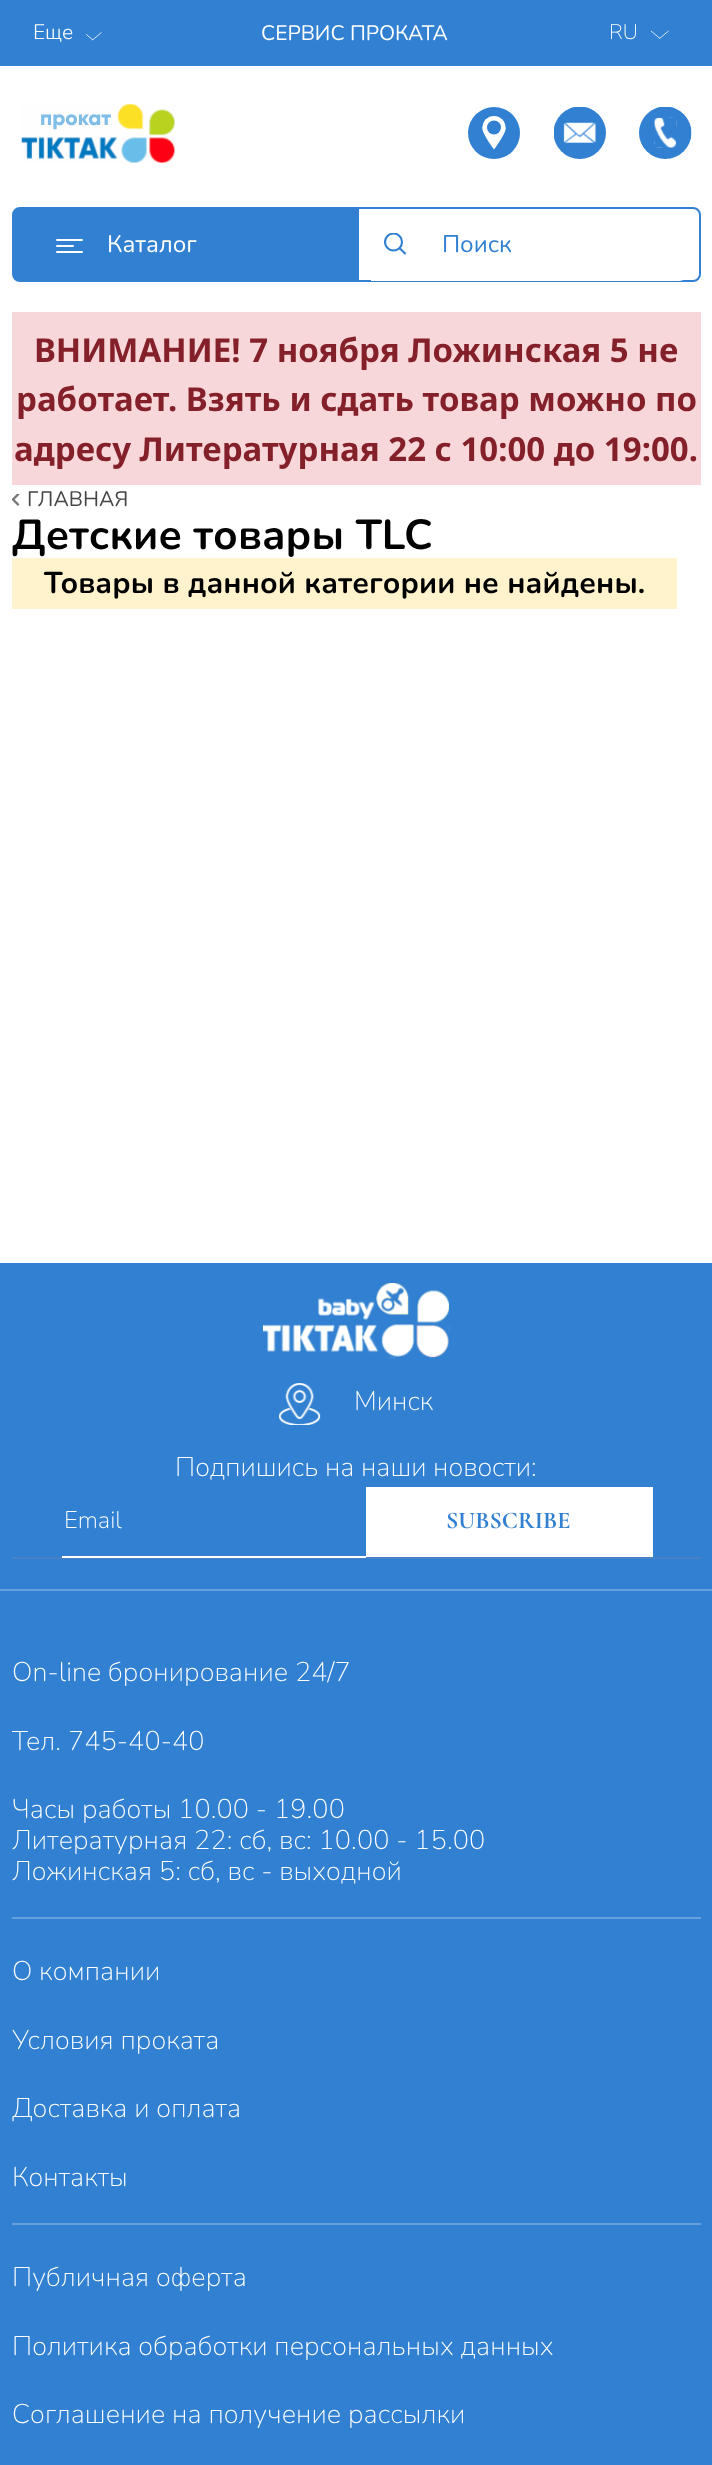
<svg xmlns="http://www.w3.org/2000/svg" width="712" height="2465" viewBox="0 0 712 2465">
  <style>
    .t1 { font: 300 21px Nunito; fill: #fff; }
    .t2 { font: 21px Nunito; fill: #fff; }
    .t3 { font: 200 21px Nunito; fill: #fff; }
    .t4 { font: 800 21px Gilroy; fill: #80bde7; }
    .t5 { font: 24px Nunito; fill: #fff; }
    .t6 { font: 24px Nunito; fill: #3180d1; }
    .t7 { font: bold 33px Noto Sans; fill: #842029; }
    .t8 { font: 21px Nunito; fill: #464646; }
    .t9 { font: bold 42px Nunito; letter-spacing: 0.1px; fill: #000; }
    .t10 { font: bold 30px Nunito; letter-spacing: 0.1px; fill: #000; }
    .t11 { font: 200 27px Nunito; fill: #fff; }
    .t12 { font: 200 24px Nunito; fill: #fff; }
    .t13 { font: bold 24px Cormorant; fill: #3180d1; }
    .t14 { font: 200 27px Nunito; letter-spacing: 0.1px; fill: #fff; }
  </style>
  <defs>
    <clipPath id="clip1"><rect x="86" y="32" width="15" height="9"/></clipPath>
    <clipPath id="clip2"><rect x="384" y="233" width="23" height="22"/></clipPath>
    <clipPath id="clip3"><rect x="12" y="494" width="8" height="12"/></clipPath>
  </defs>
  <rect width="100%" height="100%" fill="#fff"/>
  <rect x="0" y="0" width="712" height="66" fill="#3180d1"/>
  <text x="33" y="39" class="t1">Еще</text>
  <g clip-path="url(#clip1)">
    <path d="M84 32.5L93 40" fill="none" stroke="#fff" stroke-width="0.8"/>
  </g>
  <path d="M101.5 32.5L92.5 40" fill="none" stroke="#fff" stroke-width="0.8"/>
  <text x="261" y="40" class="t2">СЕРВИС ПРОКАТА</text>
  <text x="609" y="39" class="t3">RU</text>
  <path d="M651 31L660 38.5M668.5 31L659.5 38.5" fill="none" stroke="#fff" stroke-width="0.8"/>
  <image x="21" y="104" width="155" height="60" href="images/1.png"/>
  <text x="40" y="125" class="t4">прокат</text>
  <circle cx="494" cy="133" r="26" fill="#3180d1"/>
  <circle cx="494" cy="127.5" r="11.5" fill="#fff"/>
  <circle cx="494" cy="127.5" r="7" fill="#3180d1"/>
  <path d="M505.5 128C506 130.5 502.5 138 494 149.5C486.5 139.5 482 130.5 482.5 128C482.5 122.5 488.5 135.5 494 135.5C499.5 135.5 504.5 123 505.5 128Z" fill="#fff"/>
  <image x="554" y="107" width="52" height="52" href="images/2.png"/>
  <image x="639" y="107" width="53" height="52" href="images/3.png"/>
  <path d="M20 208H356V281H20C16 281 13 278 13 274V215C13 211 16 208 20 208Z" fill="#3180d1" stroke="#3180d1" stroke-width="2"/>
  <rect x="56" y="239" width="27" height="2" rx="1" fill="#fff"/>
  <rect x="56" y="245" width="18" height="2" rx="1" fill="#fff"/>
  <rect x="56" y="251" width="27" height="2" rx="1" fill="#fff"/>
  <text x="107" y="252" class="t5">Каталог</text>
  <path d="M358 208H693C697 208 700 211 700 215V274C700 278 697 281 693 281H358Z" fill="none" stroke="#3180d1" stroke-width="2"/>
  <path d="M371 209H679C683.5 209 687 212.5 687 217V273C687 277.5 683.5 281 679 281H371Z" fill="#fff"/>
  <g clip-path="url(#clip2)">
    <circle cx="393.5" cy="242" r="8.5" fill="none" stroke="#3180d1" stroke-width="2.1"/>
  </g>
  <path d="M400 248.5L405 253.5" fill="none" stroke="#3180d1" stroke-width="2.1" stroke-linecap="round"/>
  <text x="442" y="252" class="t6">Поиск</text>
  <rect x="12" y="312" width="689" height="173" fill="#f8d7da"/>
  <text x="34" y="362" class="t7">ВНИМАНИЕ! 7 ноября Ложинская 5 не</text>
  <text x="16" y="411" class="t7">работает. Взять и сдать товар можно по</text>
  <text x="14" y="461" class="t7">адресу Литературная 22 с 10:00 до 19:00.</text>
  <g clip-path="url(#clip3)">
    <path d="M18 504.5L13 499.5L18 494.5" fill="none" stroke="#777" stroke-width="2.4" stroke-linecap="round" stroke-linejoin="round"/>
  </g>
  <text x="27" y="506" class="t8">ГЛАВНАЯ</text>
  <text x="12" y="549" class="t9">Детские товары TLC</text>
  <rect x="12" y="558" width="665" height="51" fill="#fff3cd"/>
  <text x="44" y="593" class="t10">Товары в данной категории не найдены.</text>
  <rect x="0" y="1263" width="712" height="1202" fill="#3180d1"/>
  <rect x="0" y="1589" width="712" height="2" fill="#67a1dd"/>
  <image x="263" y="1283" width="187" height="75" href="images/4.png"/>
  <image x="279" y="1383" width="42" height="42" href="images/5.png"/>
  <text x="354" y="1410" class="t11">Минск</text>
  <text x="175" y="1476" class="t11">Подпишись на наши новости:</text>
  <rect x="12" y="1557" width="689" height="2" fill="#4982c4"/>
  <rect x="62" y="1556" width="304" height="2" fill="#fff"/>
  <text x="64" y="1528" class="t12">Email</text>
  <rect x="366" y="1487" width="287" height="70" fill="#fff"/>
  <text x="446" y="1528" class="t13">SUBSCRIBE</text>
  <rect x="12" y="1917" width="689" height="2" fill="#67a1dd"/>
  <text x="12" y="1681" class="t14">On-line бронирование 24/7</text>
  <text x="12" y="1750" class="t14">Тел. 745-40-40</text>
  <text x="12" y="1818" class="t14">Часы работы 10.00 - 19.00</text>
  <text x="12" y="1849" class="t14">Литературная 22: сб, вс: 10.00 - 15.00</text>
  <text x="12" y="1880" class="t14">Ложинская 5: сб, вс - выходной</text>
  <rect x="12" y="2223" width="689" height="2" fill="#67a1dd"/>
  <text x="12" y="1980" class="t14">О компании</text>
  <text x="12" y="2049" class="t14">Условия проката</text>
  <text x="12" y="2117" class="t14">Доставка и оплата</text>
  <text x="12" y="2186" class="t14">Контакты</text>
  <text x="12" y="2286" class="t14">Публичная оферта</text>
  <text x="12" y="2355" class="t14">Политика обработки персональных данных</text>
  <text x="12" y="2423" class="t14">Cоглашение на получение рассылки</text>
</svg>
